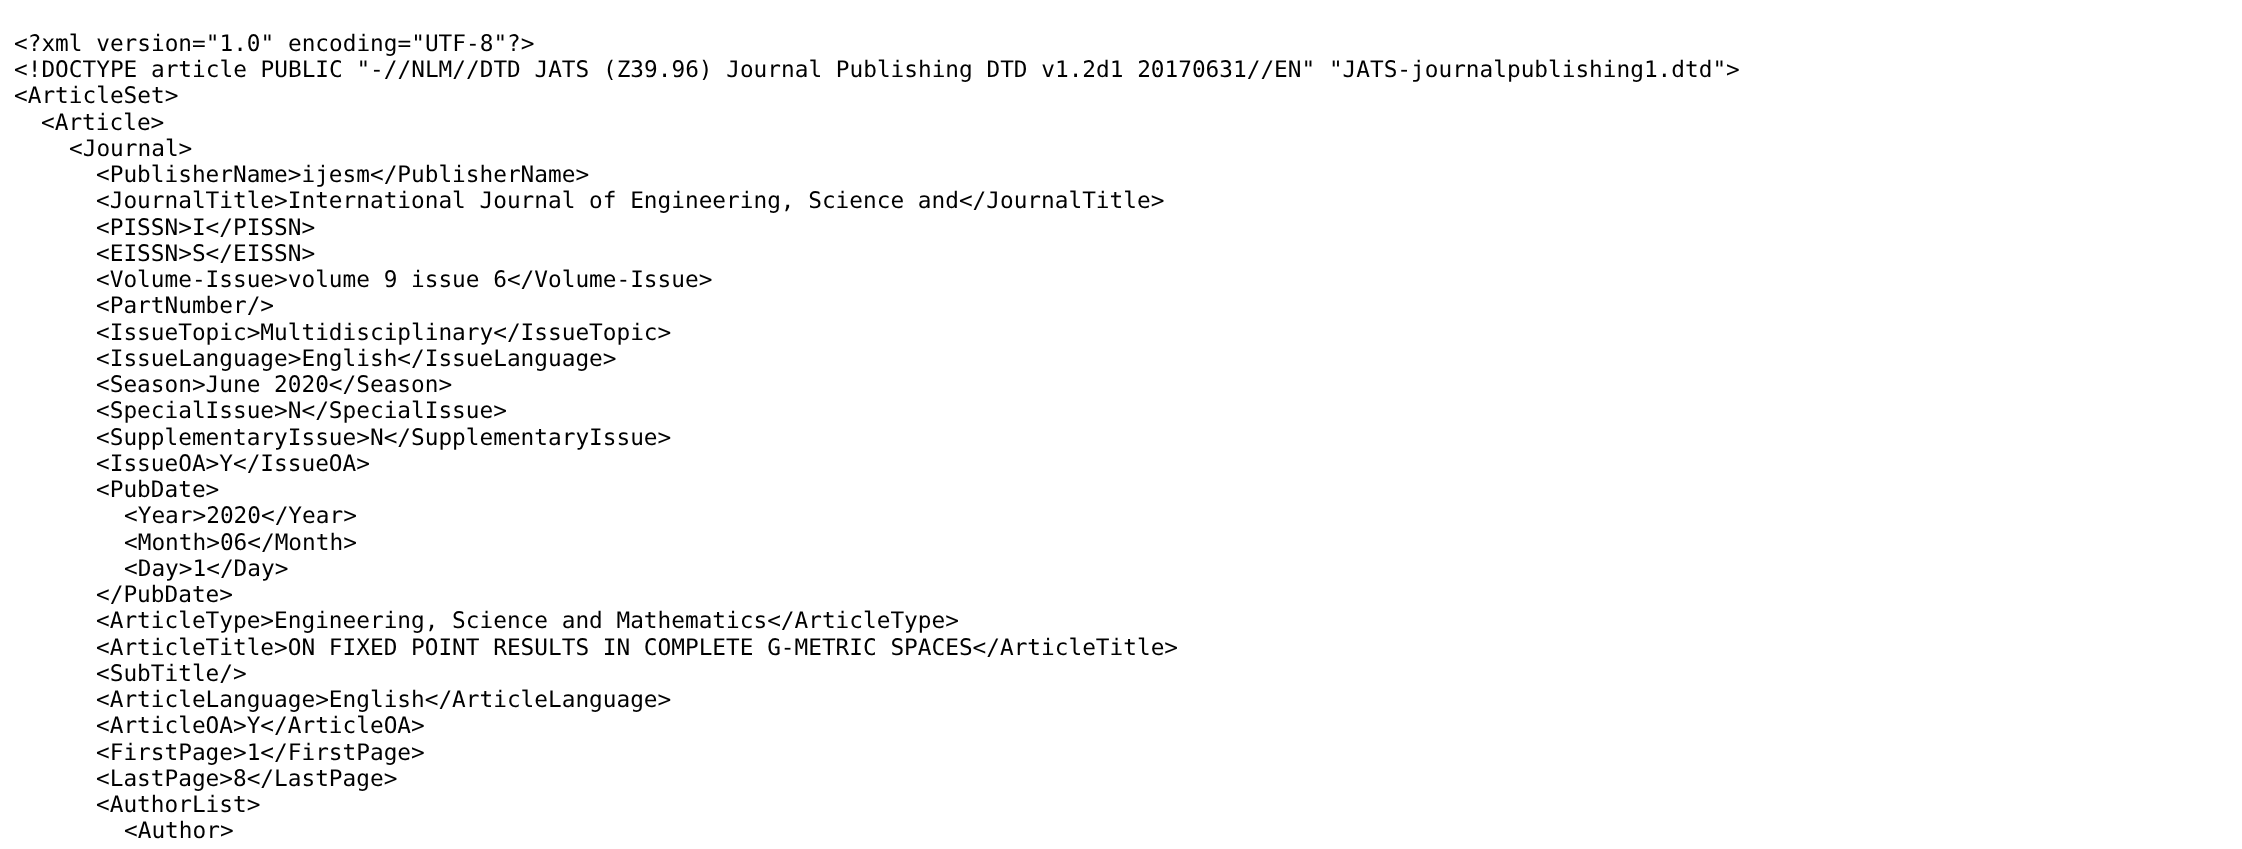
<svg xmlns="http://www.w3.org/2000/svg" width="2242" height="849" viewBox="0 0 2242 849">
  <style>
    .t1 { font: 22.75px DejaVu Sans Mono; fill: #000; }
  </style>
  <rect width="100%" height="100%" fill="#fff"/>
  <text x="14" y="51" class="t1">&lt;?xml version="1.0" encoding="UTF-8"?&gt;</text>
  <text x="14" y="77" class="t1">&lt;!DOCTYPE article PUBLIC "-//NLM//DTD JATS (Z39.96) Journal Publishing DTD v1.2d1 20170631//EN" "JATS-journalpublishing1.dtd"&gt;</text>
  <text x="14" y="103" class="t1">&lt;ArticleSet&gt;</text>
  <text x="41" y="130" class="t1">&lt;Article&gt;</text>
  <text x="69" y="156" class="t1">&lt;Journal&gt;</text>
  <text x="96" y="182" class="t1">&lt;PublisherName&gt;ijesm&lt;/PublisherName&gt;</text>
  <text x="96" y="208" class="t1">&lt;JournalTitle&gt;International Journal of Engineering, Science and&lt;/JournalTitle&gt;</text>
  <text x="96" y="235" class="t1">&lt;PISSN&gt;I&lt;/PISSN&gt;</text>
  <text x="96" y="261" class="t1">&lt;EISSN&gt;S&lt;/EISSN&gt;</text>
  <text x="96" y="287" class="t1">&lt;Volume-Issue&gt;volume 9 issue 6&lt;/Volume-Issue&gt;</text>
  <text x="96" y="313" class="t1">&lt;PartNumber/&gt;</text>
  <text x="96" y="340" class="t1">&lt;IssueTopic&gt;Multidisciplinary&lt;/IssueTopic&gt;</text>
  <text x="96" y="366" class="t1">&lt;IssueLanguage&gt;English&lt;/IssueLanguage&gt;</text>
  <text x="96" y="392" class="t1">&lt;Season&gt;June 2020&lt;/Season&gt;</text>
  <text x="96" y="418" class="t1">&lt;SpecialIssue&gt;N&lt;/SpecialIssue&gt;</text>
  <text x="96" y="445" class="t1">&lt;SupplementaryIssue&gt;N&lt;/SupplementaryIssue&gt;</text>
  <text x="96" y="471" class="t1">&lt;IssueOA&gt;Y&lt;/IssueOA&gt;</text>
  <text x="96" y="497" class="t1">&lt;PubDate&gt;</text>
  <text x="124" y="523" class="t1">&lt;Year&gt;2020&lt;/Year&gt;</text>
  <text x="124" y="550" class="t1">&lt;Month&gt;06&lt;/Month&gt;</text>
  <text x="124" y="576" class="t1">&lt;Day&gt;1&lt;/Day&gt;</text>
  <text x="96" y="602" class="t1">&lt;/PubDate&gt;</text>
  <text x="96" y="628" class="t1">&lt;ArticleType&gt;Engineering, Science and Mathematics&lt;/ArticleType&gt;</text>
  <text x="96" y="655" class="t1">&lt;ArticleTitle&gt;ON FIXED POINT RESULTS IN COMPLETE G-METRIC SPACES&lt;/ArticleTitle&gt;</text>
  <text x="96" y="681" class="t1">&lt;SubTitle/&gt;</text>
  <text x="96" y="707" class="t1">&lt;ArticleLanguage&gt;English&lt;/ArticleLanguage&gt;</text>
  <text x="96" y="733" class="t1">&lt;ArticleOA&gt;Y&lt;/ArticleOA&gt;</text>
  <text x="96" y="760" class="t1">&lt;FirstPage&gt;1&lt;/FirstPage&gt;</text>
  <text x="96" y="786" class="t1">&lt;LastPage&gt;8&lt;/LastPage&gt;</text>
  <text x="96" y="812" class="t1">&lt;AuthorList&gt;</text>
  <text x="124" y="838" class="t1">&lt;Author&gt;</text>
</svg>
